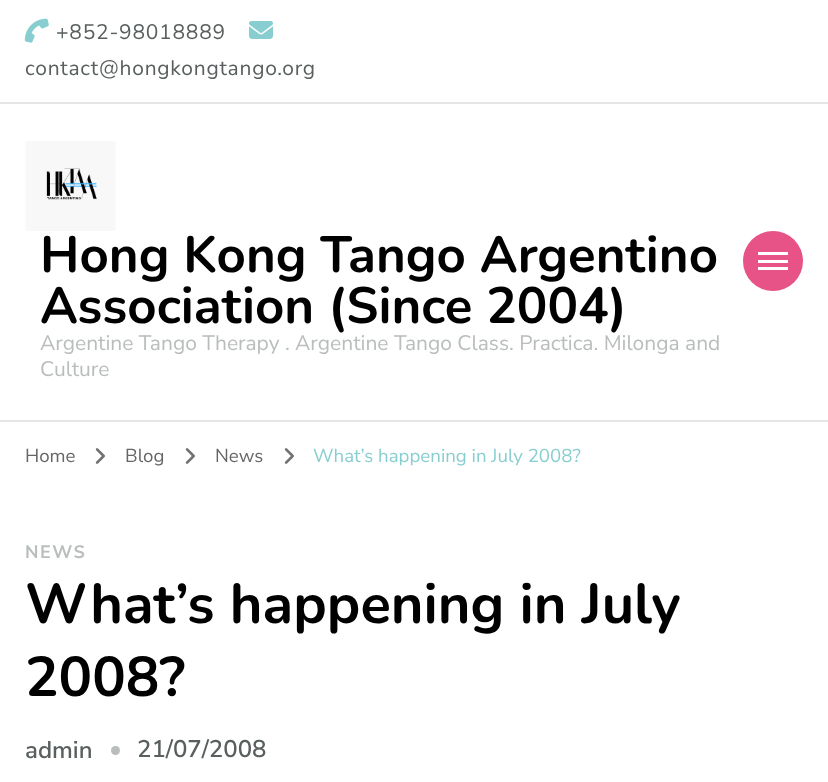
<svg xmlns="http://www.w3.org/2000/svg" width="828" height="782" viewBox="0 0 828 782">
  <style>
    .t1 { font: 21px Nunito Sans; letter-spacing: 0.75px; fill: #595f5f; }
    .t2 { font: bold 51px Nunito; fill: #000; }
    .t3 { font: 21px Nunito Sans; fill: #b9bdbd; }
    .t4 { font: 18.7px Nunito Sans; fill: #666; }
    .t5 { font: 18.7px Nunito Sans; fill: #88ced0; }
    .t6 { font: bold 18px Nunito Sans; letter-spacing: 1.5px; fill: #b9bdbd; }
    .t7 { font: bold 56px Nunito; fill: #000; }
    .t8 { font: 600 24px Nunito Sans; fill: #595f5f; }
  </style>
  <rect width="100%" height="100%" fill="#fff"/>
  <rect x="0" y="420" width="828" height="2" fill="#e5e5e5"/>
  <rect x="0" y="102" width="828" height="2" fill="#e5e5e5"/>
  <image x="24" y="18" width="25" height="25" href="images/1.png"/>
  <text x="56" y="39" class="t1">+852-98018889</text>
  <image x="249" y="21" width="24" height="18" href="images/2.png"/>
  <text x="25" y="75" class="t1">contact@hongkongtango.org</text>
  <image x="25" y="141" width="91" height="90" href="images/3.png"/>
  <text x="40" y="272" class="t2">Hong Kong Tango Argentino</text>
  <text x="40" y="323" class="t2">Association (Since 2004)</text>
  <text x="40" y="350" class="t3">Argentine Tango Therapy . Argentine Tango Class. Practica. Milonga and</text>
  <text x="40" y="376" class="t3">Culture</text>
  <circle cx="773" cy="261" r="30" fill="#e75387"/>
  <rect x="758" y="252" width="30" height="3" fill="#fff"/>
  <rect x="758" y="260" width="30" height="3" fill="#fff"/>
  <rect x="758" y="267" width="30" height="3" fill="#fff"/>
  <text x="25" y="462" class="t4">Home</text>
  <image x="95" y="448" width="10" height="16" href="images/4.png"/>
  <text x="125" y="462" class="t4">Blog</text>
  <image x="185" y="448" width="10" height="16" href="images/4.png"/>
  <text x="215" y="462" class="t4">News</text>
  <image x="284" y="448" width="10" height="16" href="images/4.png"/>
  <text x="313" y="462" class="t5">What’s happening in July 2008?</text>
  <text x="25" y="558" class="t6">NEWS</text>
  <text x="25" y="623" class="t7">What’s happening in July</text>
  <text x="25" y="696" class="t7">2008?</text>
  <text x="25" y="758" class="t8">admin</text>
  <circle cx="115.5" cy="750.5" r="4.5" fill="#b9bdbd"/>
  <text x="137" y="757" class="t8">21/07/2008</text>
</svg>
